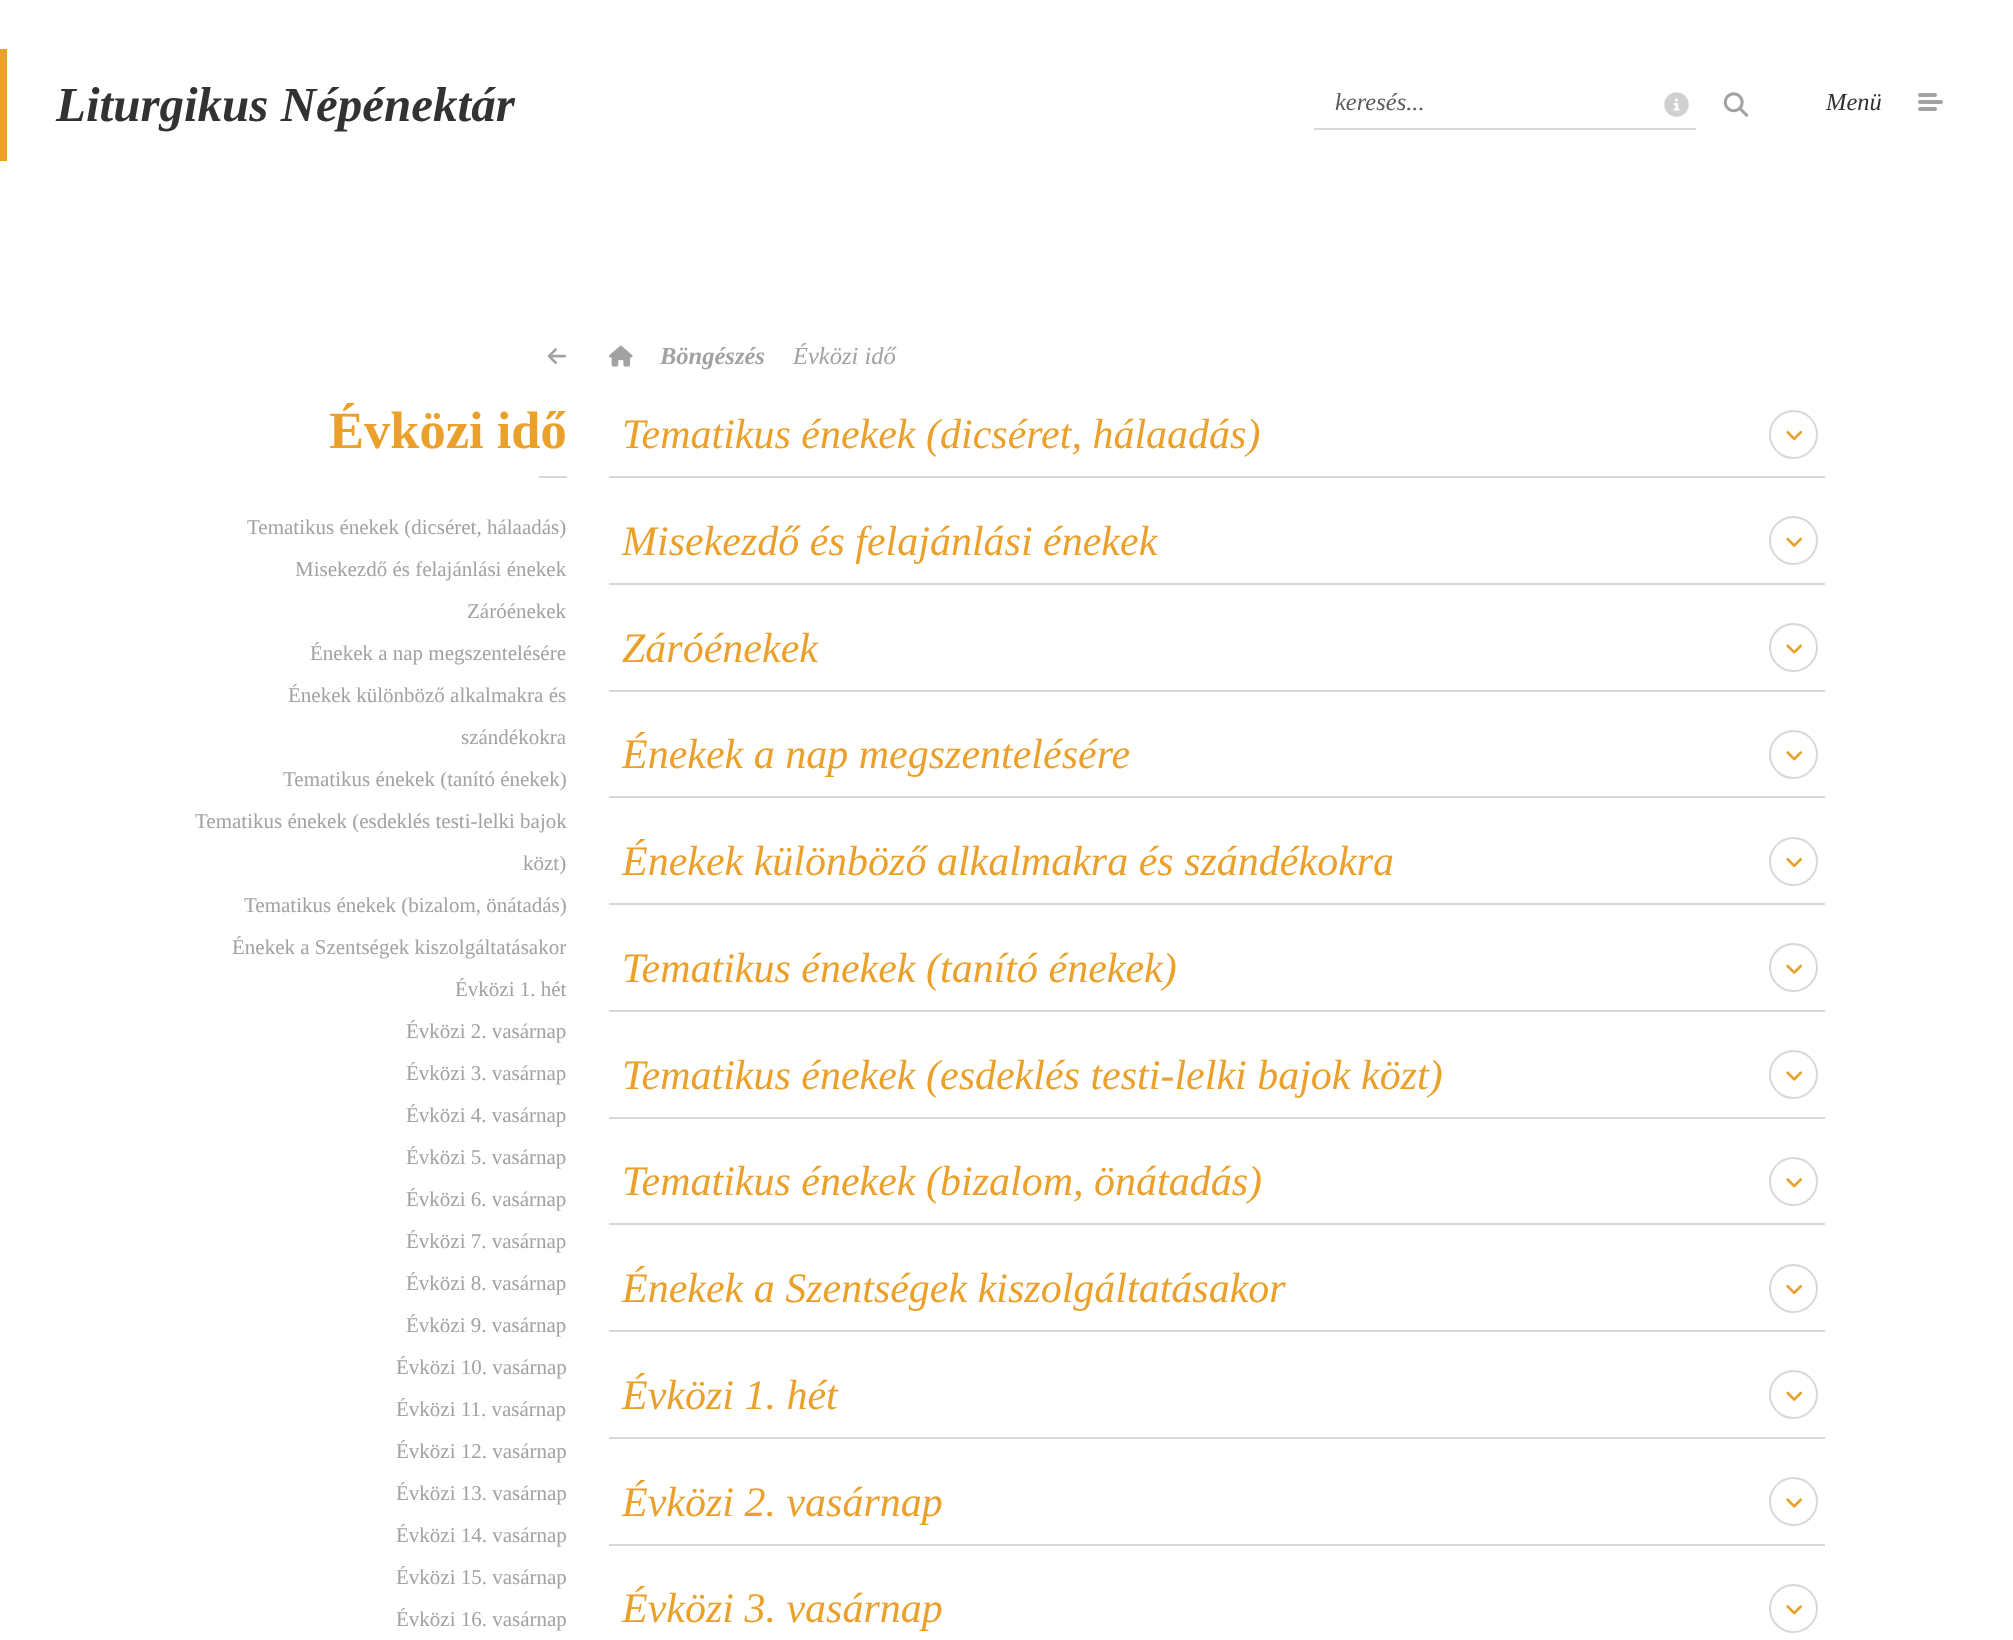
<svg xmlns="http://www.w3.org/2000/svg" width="2013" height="1640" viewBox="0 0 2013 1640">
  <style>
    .t1 { font: italic bold 49px Liberation Serif; fill: #333230; }
    .t2 { font: italic 24.5px Liberation Serif; fill: #595c5f; }
    .t3 { font: italic 24.5px Liberation Serif; fill: #333230; }
    .t4 { font: italic bold 24.5px Liberation Serif; fill: #a2a2a2; }
    .t5 { font: italic 24.5px Liberation Serif; fill: #a2a2a2; }
    .t6 { font: bold 52.5px Liberation Serif; fill: #eaa02b; }
    .t7 { font: 21px Liberation Serif; fill: #a2a2a2; }
    .t8 { font: italic 42px Liberation Serif; fill: #eaa02b; }
  </style>
  <rect width="100%" height="100%" fill="#fff"/>
  <rect x="0" y="49" width="7" height="112" fill="#eaa02b"/>
  <text x="56" y="121" class="t1">Liturgikus Népénektár</text>
  <rect x="1314" y="128" width="382" height="2" fill="#d8d8d8"/>
  <text x="1335" y="110" class="t2">keresés...</text>
  <image x="1664" y="92" width="25" height="25" href="images/1.png"/>
  <image x="1723" y="92" width="26" height="25" href="images/2.png"/>
  <text x="1826" y="110" class="t3">Menü</text>
  <rect x="1918" y="93" width="19" height="4" rx="2" fill="#a2a2a2"/>
  <rect x="1918" y="100" width="25" height="4" rx="2" fill="#a2a2a2"/>
  <rect x="1918" y="107" width="19" height="4" rx="2" fill="#a2a2a2"/>
  <image x="547" y="348" width="20" height="16" href="images/3.png"/>
  <image x="609" y="345" width="24" height="22" href="images/4.png"/>
  <text x="660" y="364" class="t4">Böngészés</text>
  <text x="793" y="364" class="t5">Évközi idő</text>
  <text x="329" y="448" class="t6">Évközi idő</text>
  <rect x="539" y="476" width="28" height="2" fill="#d8d8d8"/>
  <text x="247" y="534" class="t7">Tematikus énekek (dicséret, hálaadás)</text>
  <text x="295" y="576" class="t7">Misekezdő és felajánlási énekek</text>
  <text x="467" y="618" class="t7">Záróénekek</text>
  <text x="310" y="660" class="t7">Énekek a nap megszentelésére</text>
  <text x="288" y="702" class="t7">Énekek különböző alkalmakra és</text>
  <text x="461" y="744" class="t7">szándékokra</text>
  <text x="283" y="786" class="t7">Tematikus énekek (tanító énekek)</text>
  <text x="195" y="828" class="t7">Tematikus énekek (esdeklés testi-lelki bajok</text>
  <text x="523" y="870" class="t7">közt)</text>
  <text x="244" y="912" class="t7">Tematikus énekek (bizalom, önátadás)</text>
  <text x="232" y="954" class="t7">Énekek a Szentségek kiszolgáltatásakor</text>
  <text x="455" y="996" class="t7">Évközi 1. hét</text>
  <text x="406" y="1038" class="t7">Évközi 2. vasárnap</text>
  <text x="406" y="1080" class="t7">Évközi 3. vasárnap</text>
  <text x="406" y="1122" class="t7">Évközi 4. vasárnap</text>
  <text x="406" y="1164" class="t7">Évközi 5. vasárnap</text>
  <text x="406" y="1206" class="t7">Évközi 6. vasárnap</text>
  <text x="406" y="1248" class="t7">Évközi 7. vasárnap</text>
  <text x="406" y="1290" class="t7">Évközi 8. vasárnap</text>
  <text x="406" y="1332" class="t7">Évközi 9. vasárnap</text>
  <text x="396" y="1374" class="t7">Évközi 10. vasárnap</text>
  <text x="396" y="1416" class="t7">Évközi 11. vasárnap</text>
  <text x="396" y="1458" class="t7">Évközi 12. vasárnap</text>
  <text x="396" y="1500" class="t7">Évközi 13. vasárnap</text>
  <text x="396" y="1542" class="t7">Évközi 14. vasárnap</text>
  <text x="396" y="1584" class="t7">Évközi 15. vasárnap</text>
  <text x="396" y="1626" class="t7">Évközi 16. vasárnap</text>
  <rect x="609" y="476" width="1216" height="2" fill="#d8d8d8"/>
  <text x="622" y="448" class="t8">Tematikus énekek (dicséret, hálaadás)</text>
  <circle cx="1793.5" cy="434.5" r="23.5" fill="none" stroke="#d8d8d8" stroke-width="2"/>
  <image x="1786" y="430" width="16" height="11" href="images/5.png"/>
  <rect x="609" y="583" width="1216" height="2" fill="#d8d8d8"/>
  <text x="622" y="555" class="t8">Misekezdő és felajánlási énekek</text>
  <circle cx="1793.5" cy="540.5" r="23.5" fill="none" stroke="#d8d8d8" stroke-width="2"/>
  <image x="1786" y="537" width="16" height="10" href="images/6.png"/>
  <rect x="609" y="690" width="1216" height="2" fill="#d8d8d8"/>
  <text x="622" y="662" class="t8">Záróénekek</text>
  <circle cx="1793.5" cy="647.5" r="23.5" fill="none" stroke="#d8d8d8" stroke-width="2"/>
  <image x="1786" y="644" width="16" height="10" href="images/7.png"/>
  <rect x="609" y="796" width="1216" height="2" fill="#d8d8d8"/>
  <text x="622" y="768" class="t8">Énekek a nap megszentelésére</text>
  <circle cx="1793.5" cy="754.5" r="23.5" fill="none" stroke="#d8d8d8" stroke-width="2"/>
  <image x="1786" y="751" width="16" height="10" href="images/8.png"/>
  <rect x="609" y="903" width="1216" height="2" fill="#d8d8d8"/>
  <text x="622" y="875" class="t8">Énekek különböző alkalmakra és szándékokra</text>
  <circle cx="1793.5" cy="861.5" r="23.5" fill="none" stroke="#d8d8d8" stroke-width="2"/>
  <image x="1786" y="857" width="16" height="11" href="images/5.png"/>
  <rect x="609" y="1010" width="1216" height="2" fill="#d8d8d8"/>
  <text x="622" y="982" class="t8">Tematikus énekek (tanító énekek)</text>
  <circle cx="1793.5" cy="967.5" r="23.5" fill="none" stroke="#d8d8d8" stroke-width="2"/>
  <image x="1786" y="964" width="16" height="10" href="images/6.png"/>
  <rect x="609" y="1117" width="1216" height="2" fill="#d8d8d8"/>
  <text x="622" y="1089" class="t8">Tematikus énekek (esdeklés testi-lelki bajok közt)</text>
  <circle cx="1793.5" cy="1074.5" r="23.5" fill="none" stroke="#d8d8d8" stroke-width="2"/>
  <image x="1786" y="1071" width="16" height="10" href="images/7.png"/>
  <rect x="609" y="1223" width="1216" height="2" fill="#d8d8d8"/>
  <text x="622" y="1195" class="t8">Tematikus énekek (bizalom, önátadás)</text>
  <circle cx="1793.5" cy="1181.5" r="23.5" fill="none" stroke="#d8d8d8" stroke-width="2"/>
  <image x="1786" y="1178" width="16" height="10" href="images/8.png"/>
  <rect x="609" y="1330" width="1216" height="2" fill="#d8d8d8"/>
  <text x="622" y="1302" class="t8">Énekek a Szentségek kiszolgáltatásakor</text>
  <circle cx="1793.5" cy="1288.5" r="23.5" fill="none" stroke="#d8d8d8" stroke-width="2"/>
  <image x="1786" y="1284" width="16" height="11" href="images/5.png"/>
  <rect x="609" y="1437" width="1216" height="2" fill="#d8d8d8"/>
  <text x="622" y="1409" class="t8">Évközi 1. hét</text>
  <circle cx="1793.5" cy="1394.5" r="23.5" fill="none" stroke="#d8d8d8" stroke-width="2"/>
  <image x="1786" y="1391" width="16" height="10" href="images/6.png"/>
  <rect x="609" y="1544" width="1216" height="2" fill="#d8d8d8"/>
  <text x="622" y="1516" class="t8">Évközi 2. vasárnap</text>
  <circle cx="1793.5" cy="1501.5" r="23.5" fill="none" stroke="#d8d8d8" stroke-width="2"/>
  <image x="1786" y="1498" width="16" height="10" href="images/7.png"/>
  <text x="622" y="1622" class="t8">Évközi 3. vasárnap</text>
  <circle cx="1793.5" cy="1608.5" r="23.5" fill="none" stroke="#d8d8d8" stroke-width="2"/>
  <image x="1786" y="1605" width="16" height="10" href="images/8.png"/>
</svg>
